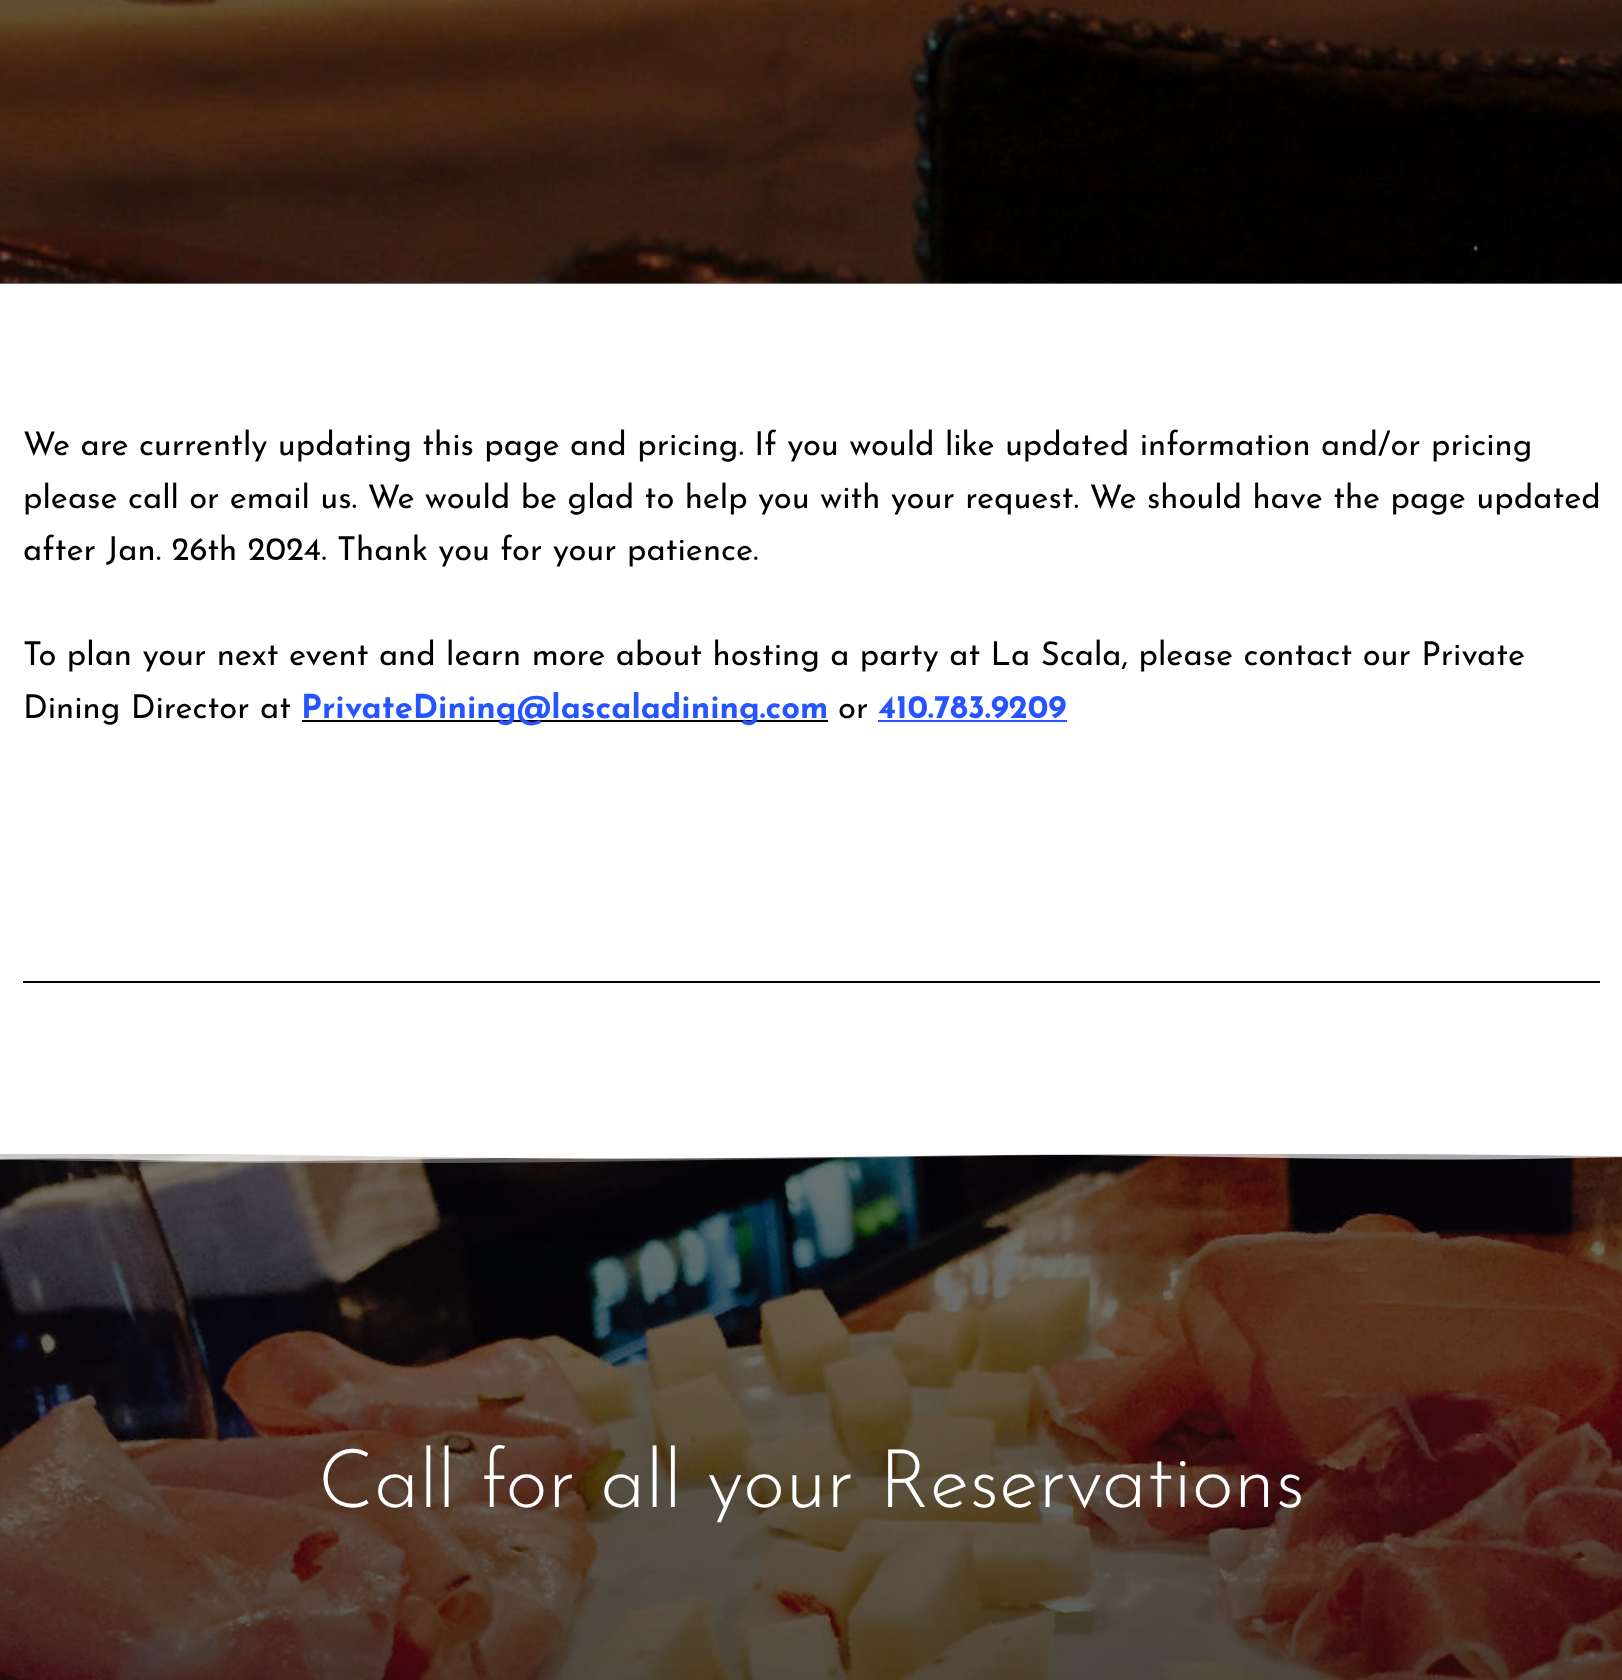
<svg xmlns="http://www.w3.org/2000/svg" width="1622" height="1680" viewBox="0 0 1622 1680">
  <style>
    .t1 { font: 32.85px Josefin Sans; fill: #000; }
    .t2 { font: bold 32.85px Josefin Sans; fill: #2655ff; }
    .t3 { font: 300 81px Josefin Sans; fill: #fff; }
  </style>
  <rect width="100%" height="100%" fill="#fff"/>
  <rect x="0" y="283" width="1622" height="1" fill="#808080"/>
  <image x="0" y="0" width="1622" height="284" href="images/1.png"/>
  <text x="23" y="455" class="t1">We are currently updating this page and pricing. If you would like updated information and/or pricing</text>
  <text x="23" y="508" class="t1">please call or email us. We would be glad to help you with your request. We should have the page updated</text>
  <text x="23" y="560" class="t1">after Jan. 26th 2024. Thank you for your patience.</text>
  <text x="23" y="665" class="t1">To plan your next event and learn more about hosting a party at La Scala, please contact our Private</text>
  <text x="23" y="718" class="t1">Dining Director at</text>
  <rect x="302" y="720" width="526" height="2" fill="#000"/>
  <text x="301" y="718" class="t2">PrivateDining@lascaladining.com</text>
  <text x="838" y="718" class="t1">or</text>
  <text x="878" y="718" class="t2">410.783.9209</text>
  <rect x="878" y="720" width="189" height="2" fill="#2655ff"/>
  <rect x="23" y="981" width="1577" height="2" fill="#000"/>
  <image x="0" y="1154" width="1622" height="526" href="images/2.png"/>
  <image x="0" y="1154" width="1622" height="9" href="images/3.png"/>
  <text x="318" y="1507" class="t3">Call for all your Reservations</text>
</svg>
